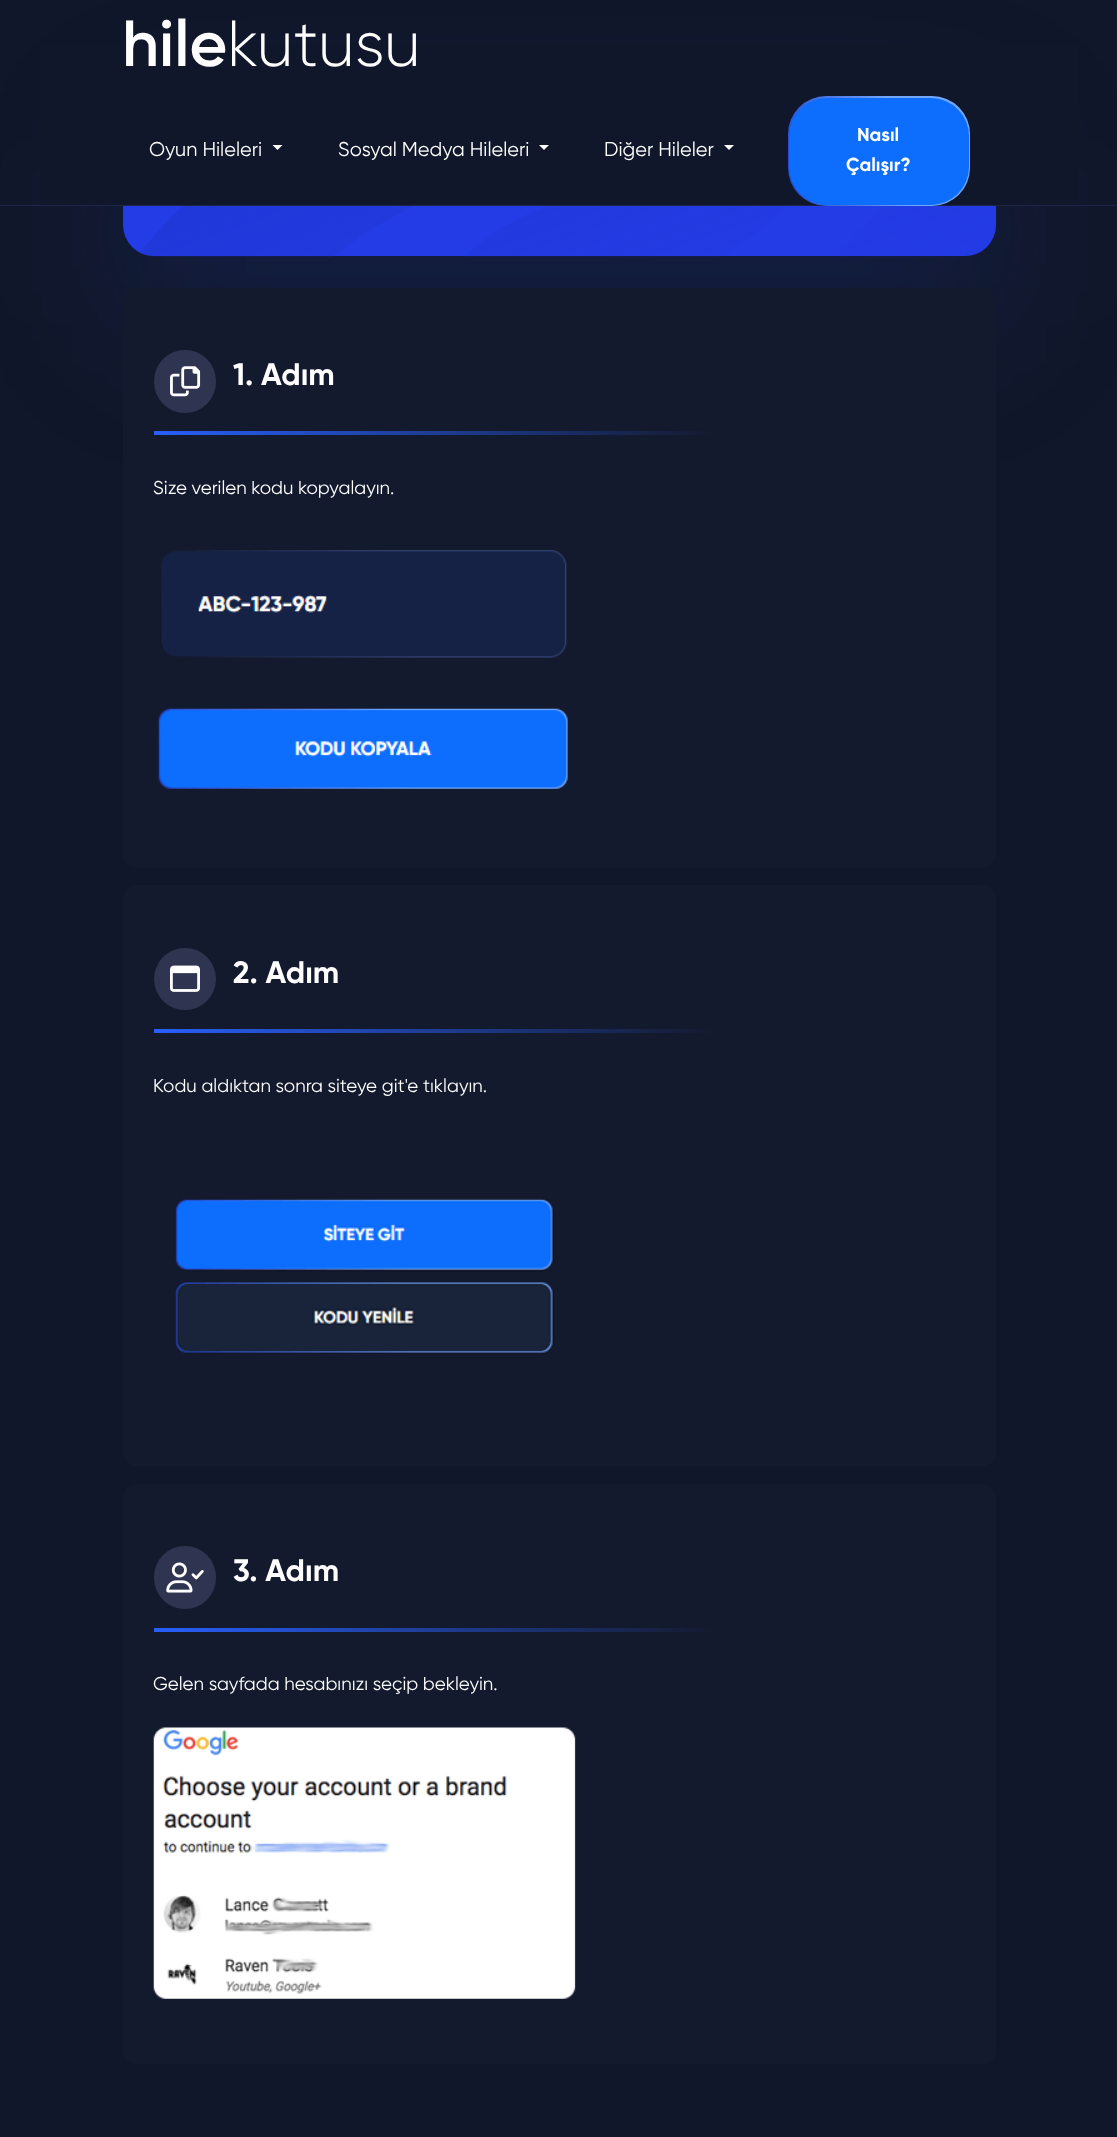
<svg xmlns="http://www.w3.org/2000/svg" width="1117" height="2137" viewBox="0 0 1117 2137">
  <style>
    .t1 { font: 600 65px Gilroy; fill: #fff; }
    .t2 { font: 300 65px Gilroy; fill: #fff; }
    .t3 { font: 20px Gilroy; fill: #fff; }
    .t4 { font: bold 18.75px Gilroy; fill: #fff; }
    .t5 { font: bold 31px Gilroy; fill: #fff; }
    .t6 { font: 18.75px Gilroy; fill: #fff; }
  </style>
  <defs>
    <linearGradient id="g1" gradientUnits="userSpaceOnUse" x1="978" y1="128" x2="780" y2="175"><stop offset="0.4" stop-color="#73a7ff"/><stop offset="0.98" stop-color="#2345cb"/></linearGradient>
    <linearGradient id="g2" gradientUnits="userSpaceOnUse" x1="154" y1="433" x2="716" y2="433"><stop offset="0" stop-color="#285ffa"/><stop offset="1" stop-color="#141a2e"/></linearGradient>
    <linearGradient id="g3" gradientUnits="userSpaceOnUse" x1="154" y1="1031" x2="716" y2="1031"><stop offset="0" stop-color="#285ffa"/><stop offset="1" stop-color="#141a2e"/></linearGradient>
    <linearGradient id="g4" gradientUnits="userSpaceOnUse" x1="154" y1="1629" x2="716" y2="1629"><stop offset="0" stop-color="#285ffa"/><stop offset="1" stop-color="#141a2e"/></linearGradient>
  </defs>
  <rect width="100%" height="100%" fill="#11172a"/>
  <rect x="123" y="139" width="873" height="184" rx="31" fill="#1e3cac33" filter="blur(75px)"/>
  <rect x="123" y="73" width="873" height="183" rx="31" fill="#243ce6"/>
  <rect x="41" y="43" width="1037" height="162" fill="#11172a"/>
  <rect x="0" y="205" width="1117" height="1" fill="#1c2646"/>
  <text x="122" y="66" class="t1">hile</text>
  <text x="227" y="66" class="t2">kutusu</text>
  <text x="149" y="156" class="t3">Oyun Hileleri</text>
  <path d="M272.5 145H282.5L277.5 150Z" fill="#fff"/>
  <text x="338" y="156" class="t3">Sosyal Medya Hileleri</text>
  <path d="M539 145H549L544 150Z" fill="#fff"/>
  <text x="604" y="156" class="t3">Diğer Hileler</text>
  <path d="M724 145H734L729 150Z" fill="#fff"/>
  <rect x="788" y="96" width="182" height="110" rx="38" fill="url(#g1)"/>
  <rect x="789" y="98" width="180" height="107" rx="38" fill="#0d6efd"/>
  <text x="857" y="141" class="t4">Nasıl</text>
  <text x="846" y="171" class="t4">Çalışır?</text>
  <image x="139" y="206" width="858" height="51" href="images/1.png"/>
  <rect x="123" y="288" width="873" height="580" rx="13" fill="#141a2e"/>
  <rect x="154" y="350" width="62" height="63" rx="31" fill="#2f3550"/>
  <image x="170" y="366" width="31" height="31" href="images/2.png"/>
  <text x="233" y="385" class="t5">1. Adım</text>
  <rect x="154" y="431" width="562" height="4" fill="url(#g2)"/>
  <text x="153" y="494" class="t6">Size verilen kodu kopyalayın.</text>
  <image x="158" y="550" width="410" height="239" href="images/3.png"/>
  <rect x="123" y="885" width="873" height="581" rx="13" fill="#141a2e"/>
  <circle cx="185" cy="979" r="31" fill="#2f3550"/>
  <image x="170" y="965" width="30" height="27" href="images/4.png"/>
  <text x="233" y="983" class="t5">2. Adım</text>
  <rect x="154" y="1029" width="562" height="4" fill="url(#g3)"/>
  <text x="153" y="1092" class="t6">Kodu aldıktan sonra siteye git'e tıklayın.</text>
  <image x="175" y="1129" width="402" height="275" href="images/5.png"/>
  <rect x="123" y="1484" width="873" height="580" rx="13" fill="#141a2e"/>
  <rect x="154" y="1546" width="62" height="63" rx="31" fill="#2f3550"/>
  <image x="166" y="1562" width="38" height="31" href="images/6.png"/>
  <text x="233" y="1581" class="t5">3. Adım</text>
  <rect x="154" y="1628" width="562" height="4" fill="url(#g4)"/>
  <text x="153" y="1690" class="t6">Gelen sayfada hesabınızı seçip bekleyin.</text>
  <image x="153" y="1727" width="423" height="272" href="images/7.png"/>
</svg>
